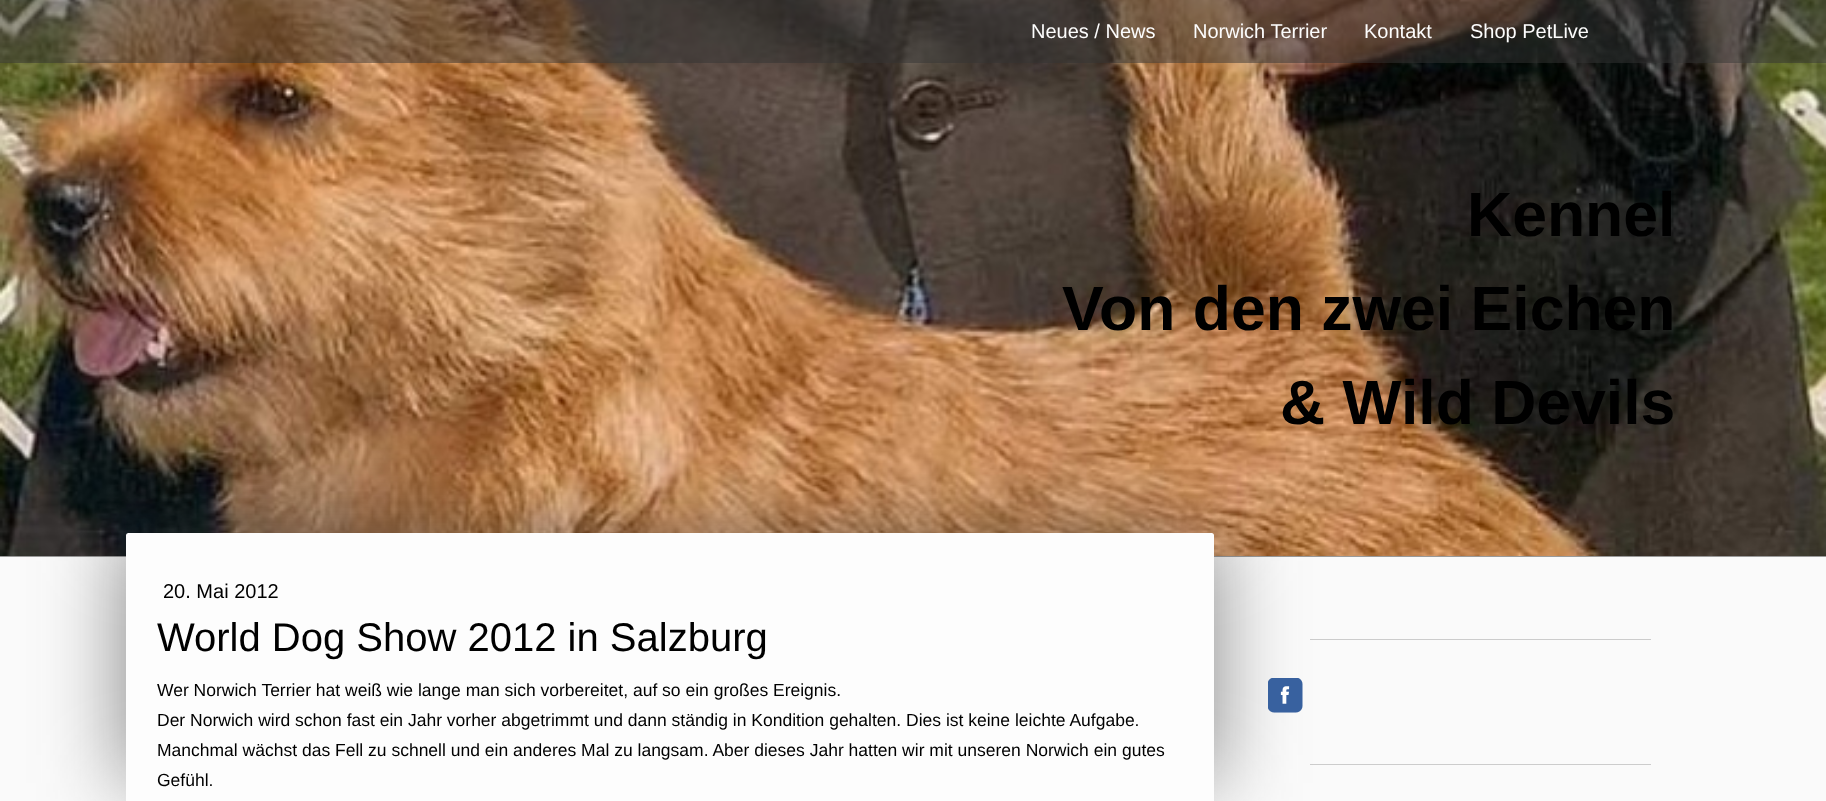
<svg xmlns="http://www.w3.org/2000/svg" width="1826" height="801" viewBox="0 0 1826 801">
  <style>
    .t1 { font: 20px Liberation Sans; fill: #fdfdfd; }
    .t2 { font: bold 62.5px Liberation Sans; fill: #000; }
    .t3 { font: 20px Liberation Sans; fill: #000; }
    .t4 { font: 40px Liberation Sans; fill: #000; }
    .t5 { font: 17.5px Liberation Sans; fill: #000; }
  </style>
  <rect width="100%" height="100%" fill="#fff"/>
  <image x="0" y="0" width="1826" height="556" href="images/1.png"/>
  <rect x="0" y="0" width="1826" height="63" fill="#33333380"/>
  <text x="1031" y="38" class="t1">Neues / News</text>
  <text x="1193" y="38" class="t1">Norwich Terrier</text>
  <text x="1364" y="38" class="t1">Kontakt</text>
  <text x="1470" y="38" class="t1">Shop PetLive</text>
  <text x="1467" y="236" class="t2">Kennel</text>
  <text x="1062" y="330" class="t2">Von den zwei Eichen</text>
  <text x="1280" y="424" class="t2">&amp; Wild Devils</text>
  <rect x="0" y="557" width="1826" height="244" fill="#fafafa"/>
  <rect x="0" y="556" width="1826" height="1" fill="#999"/>
  <rect x="1310" y="639" width="341" height="1" fill="#ccc"/>
  <rect x="1310" y="764" width="341" height="1" fill="#ccc"/>
  <rect x="125" y="533" width="1089" height="250" fill="#33333399" filter="blur(42.5px)"/>
  <rect x="126" y="533" width="1088" height="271" rx="2.5" fill="#fdfdfd"/>
  <text x="163" y="598" class="t3">20. Mai 2012</text>
  <text x="157" y="651" class="t4">World Dog Show 2012 in Salzburg</text>
  <text x="157" y="696" class="t5">Wer Norwich Terrier hat weiß wie lange man sich vorbereitet, auf so ein großes Ereignis.</text>
  <text x="157" y="726" class="t5">Der Norwich wird schon fast ein Jahr vorher abgetrimmt und dann ständig in Kondition gehalten. Dies ist keine leichte Aufgabe.</text>
  <text x="157" y="756" class="t5">Manchmal wächst das Fell zu schnell und ein anderes Mal zu langsam. Aber dieses Jahr hatten wir mit unseren Norwich ein gutes</text>
  <text x="157" y="786" class="t5">Gefühl.</text>
  <image x="1268" y="678" width="35" height="35" href="images/2.png"/>
  <image x="1280" y="686" width="10" height="18" href="images/3.png"/>
</svg>
